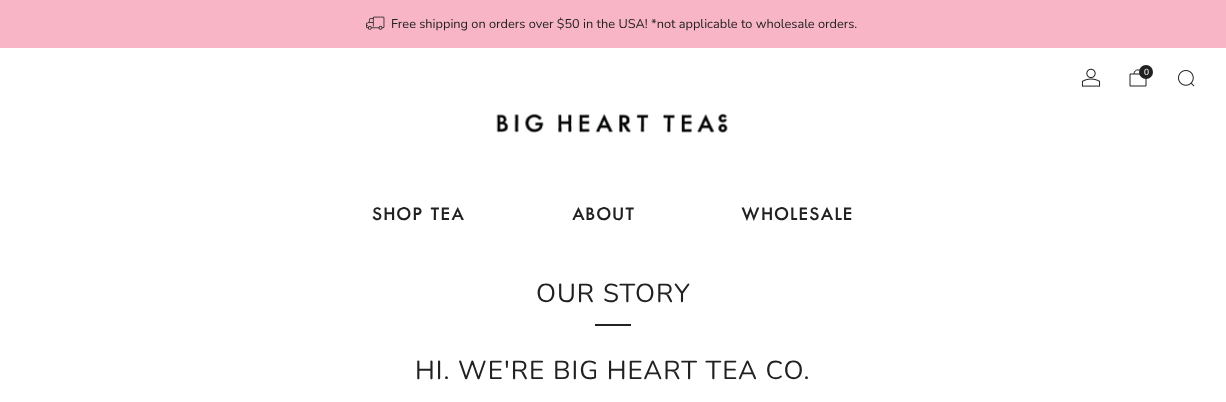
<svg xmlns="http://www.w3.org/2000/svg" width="1226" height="402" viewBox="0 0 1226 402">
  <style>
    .t1 { font: 12.75px Nunito; fill: #212121; }
    .t2 { font: 9px Liberation Sans; fill: #fff; }
    .t3 { font: 18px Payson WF; letter-spacing: 1px; fill: #212121; }
    .t4 { font: 26px Nunito; letter-spacing: 1px; fill: #212121; }
  </style>
  <rect width="100%" height="100%" fill="#fff"/>
  <rect x="0" y="0" width="1226" height="48" fill="#f8b5c6"/>
  <image x="366" y="16" width="19" height="14" href="images/1.png"/>
  <text x="391" y="28" class="t1">Free shipping on orders over $50 in the USA! *not applicable to wholesale orders.</text>
  <image x="1081" y="68" width="20" height="19" href="images/2.png"/>
  <path d="M1142 74C1142 68.5 1134 68.5 1134 74M1130 74H1146V86H1130Z" fill="none" stroke="#212121"/>
  <circle cx="1146" cy="72" r="7" fill="#212121"/>
  <text x="1144" y="75" class="t2">0</text>
  <image x="1178" y="70" width="17" height="17" href="images/3.png"/>
  <text x="372" y="220" class="t3">SHOP TEA</text>
  <text x="572" y="220" class="t3">ABOUT</text>
  <text x="741" y="220" class="t3">WHOLESALE</text>
  <image x="496" y="113" width="232" height="20" href="images/4.png"/>
  <text x="536" y="302" class="t4">OUR STORY</text>
  <rect x="595" y="324" width="36" height="2" fill="#212121"/>
  <text x="415" y="379" class="t4">HI. WE'RE BIG HEART TEA CO.</text>
</svg>
